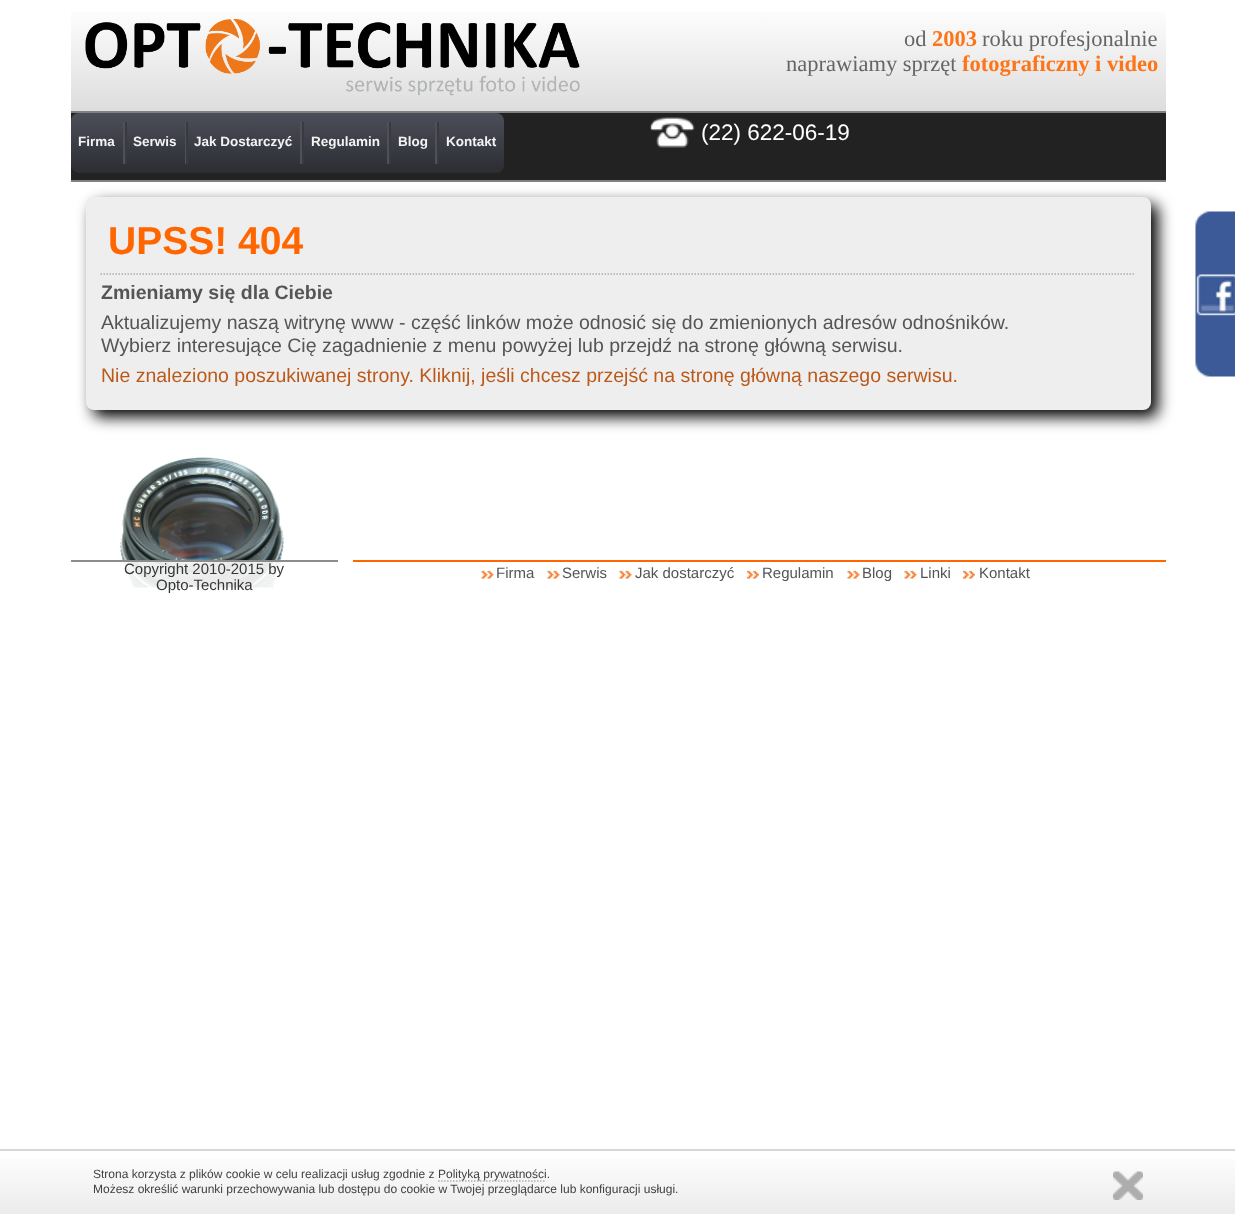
<svg xmlns="http://www.w3.org/2000/svg" width="1235" height="1214" viewBox="0 0 1235 1214">
  <style>
    .t1 { font: 22.5px Liberation Serif; fill: #656565; }
    .t2 { font: bold 22.5px Liberation Serif; fill: #fe7418; }
    .t3 { font: bold 13.5px Liberation Sans; fill: #f3f3f3; }
    .t4 { font: 22.5px Liberation Sans; fill: #fff; }
    .t5 { font: bold 39px Liberation Sans; fill: #f60; }
    .t6 { font: bold 19.5px Liberation Sans; fill: #555; }
    .t7 { font: 19.5px Liberation Sans; fill: #555; }
    .t8 { font: 19.5px Liberation Sans; fill: #bb591a; }
    .t9 { font: 15px Liberation Sans; fill: #363636; }
    .t10 { font: 15px Liberation Sans; fill: #555; }
    .t11 { font: 12px Liberation Sans; fill: #414141; }
  </style>
  <defs>
    <linearGradient id="g1" gradientUnits="userSpaceOnUse" x1="618" y1="4.5" x2="618" y2="111"><stop offset="0" stop-color="#fff"/><stop offset="1" stop-color="#ddd"/></linearGradient>
    <linearGradient id="g2" gradientUnits="userSpaceOnUse" x1="287" y1="112" x2="287" y2="173"><stop offset="0" stop-color="#4c4e5a"/><stop offset="1" stop-color="#2c2d33"/></linearGradient>
    <linearGradient id="g3" gradientUnits="userSpaceOnUse" x1="618" y1="1151" x2="618" y2="1214"><stop offset="0" stop-color="#fff"/><stop offset="1" stop-color="#ebebeb"/></linearGradient>
  </defs>
  <rect width="100%" height="100%" fill="#fff"/>
  <rect x="71" y="180" width="1095" height="2" fill="#808080"/>
  <rect x="71" y="12" width="1095" height="99" fill="url(#g1)"/>
  <rect x="71" y="111" width="1095" height="2" fill="#808080"/>
  <image x="85" y="19" width="495" height="77" href="images/1.png"/>
  <text x="904" y="46" class="t1">od</text>
  <text x="932" y="46" class="t2">2003</text>
  <text x="982" y="46" class="t1">roku profesjonalnie</text>
  <text x="786" y="71" class="t1">naprawiamy sprzęt</text>
  <text x="962" y="71" class="t2">fotograficzny i video</text>
  <rect x="71" y="113" width="1095" height="67" fill="#222"/>
  <rect x="71" y="113" width="433" height="60" rx="8" fill="url(#g2)"/>
  <rect x="123" y="122" width="2" height="42" fill="#4f5058"/>
  <text x="78" y="146" class="t3">Firma</text>
  <rect x="185" y="122" width="1" height="42" fill="#4f5058"/>
  <rect x="125" y="122" width="2" height="42" fill="#393942"/>
  <text x="133" y="146" class="t3">Serwis</text>
  <rect x="300" y="122" width="2" height="42" fill="#4f5058"/>
  <rect x="186" y="122" width="2" height="42" fill="#393942"/>
  <text x="194" y="146" class="t3">Jak Dostarczyć</text>
  <rect x="387" y="122" width="2" height="42" fill="#4f5058"/>
  <rect x="302" y="122" width="2" height="42" fill="#393942"/>
  <text x="311" y="146" class="t3">Regulamin</text>
  <rect x="435" y="122" width="2" height="42" fill="#4f5058"/>
  <rect x="389" y="122" width="2" height="42" fill="#393942"/>
  <text x="398" y="146" class="t3">Blog</text>
  <rect x="437" y="122" width="2" height="42" fill="#393942"/>
  <text x="446" y="146" class="t3">Kontakt</text>
  <image x="650" y="117" width="45" height="31" href="images/2.png"/>
  <text x="701" y="140" class="t4">(22) 622-06-19</text>
  <rect x="93" y="204" width="1065" height="213" rx="8" fill="#000" filter="blur(7.5px)"/>
  <rect x="86" y="197" width="1065" height="213" rx="8" fill="#eee"/>
  <text x="108" y="254" class="t5">UPSS! 404</text>
  <path d="M100.5 274H1135.5" fill="none" stroke="#aeaeae" stroke-width="1.5" stroke-dasharray="1.5 1.5"/>
  <text x="101" y="299" class="t6">Zmieniamy się dla Ciebie</text>
  <text x="101" y="329" class="t7">Aktualizujemy naszą witrynę www - część linków może odnosić się do zmienionych adresów odnośników.</text>
  <text x="101" y="352" class="t7">Wybierz interesujące Cię zagadnienie z menu powyżej lub przejdź na stronę główną serwisu.</text>
  <text x="101" y="382" class="t8">Nie znaleziono poszukiwanej strony. Kliknij, jeśli chcesz przejść na stronę główną naszego serwisu.</text>
  <image x="1195" y="211" width="40" height="166" href="images/3.png"/>
  <image x="120" y="457" width="164" height="131" href="images/4.png"/>
  <rect x="122" y="560" width="159" height="28" fill="#ffffffe6"/>
  <rect x="71" y="560" width="267" height="2" fill="#808080e6"/>
  <text x="124" y="574" class="t9">Copyright 2010-2015 by</text>
  <text x="156" y="590" class="t9">Opto-Technika</text>
  <rect x="353" y="560" width="813" height="2" fill="#f60"/>
  <image x="481" y="570" width="13" height="9" href="images/5.png"/>
  <text x="496" y="578" class="t10">Firma</text>
  <image x="547" y="570" width="13" height="9" href="images/6.png"/>
  <text x="562" y="578" class="t10">Serwis</text>
  <image x="619" y="570" width="13" height="9" href="images/6.png"/>
  <text x="635" y="578" class="t10">Jak dostarczyć</text>
  <image x="747" y="570" width="12" height="9" href="images/7.png"/>
  <text x="762" y="578" class="t10">Regulamin</text>
  <image x="847" y="570" width="13" height="9" href="images/5.png"/>
  <text x="862" y="578" class="t10">Blog</text>
  <image x="904" y="570" width="13" height="9" href="images/5.png"/>
  <text x="920" y="578" class="t10">Linki</text>
  <image x="963" y="570" width="12" height="9" href="images/8.png"/>
  <text x="979" y="578" class="t10">Kontakt</text>
  <rect x="0" y="1159" width="1235" height="55" fill="url(#g3)"/>
  <rect x="0" y="1149" width="1235" height="2" fill="#d7d7d7"/>
  <text x="93" y="1178" class="t11">Strona korzysta z plików cookie w celu realizacji usług zgodnie z</text>
  <path d="M438 1181H546" fill="none" stroke="#aeaeae" stroke-width="1.5" stroke-dasharray="1.5 1.5"/>
  <text x="438" y="1178" class="t11">Polityką prywatności.</text>
  <image x="1113" y="1171" width="30" height="29" href="images/9.png"/>
  <text x="93" y="1193" class="t11">Możesz określić warunki przechowywania lub dostępu do cookie w Twojej przeglądarce lub konfiguracji usługi.</text>
</svg>
